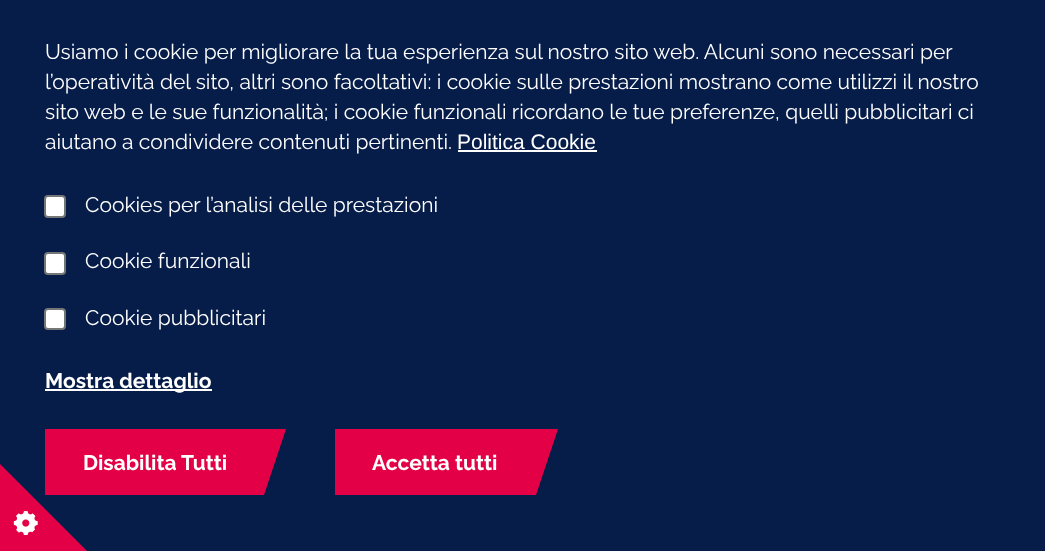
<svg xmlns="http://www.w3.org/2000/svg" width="1045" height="551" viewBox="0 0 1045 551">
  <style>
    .t1 { font: 21px Raleway; fill: #fff; }
    .t2 { font: 21px Liberation Sans; fill: #fff; }
    .t3 { font: bold 21px Raleway; fill: #fff; }
  </style>
  <rect width="100%" height="100%" fill="#071d49"/>
  <text x="45" y="59" class="t1">Usiamo i cookie per migliorare la tua esperienza sul nostro sito web. Alcuni sono necessari per</text>
  <text x="45" y="89" class="t1">l’operatività del sito, altri sono facoltativi: i cookie sulle prestazioni mostrano come utilizzi il nostro</text>
  <text x="45" y="119" class="t1">sito web e le sue funzionalità; i cookie funzionali ricordano le tue preferenze, quelli pubblicitari ci</text>
  <text x="45" y="149" class="t1">aiutano a condividere contenuti pertinenti.</text>
  <text x="457" y="149" class="t2">Politica Cookie</text>
  <rect x="458" y="150" width="139" height="2" fill="#fff"/>
  <rect x="45" y="196" width="20" height="21" rx="3" fill="#fff" stroke="#767676" stroke-width="2"/>
  <text x="85" y="212" class="t1">Cookies per l’analisi delle prestazioni</text>
  <rect x="45" y="253" width="20" height="21" rx="3" fill="#fff" stroke="#767676" stroke-width="2"/>
  <text x="85" y="268" class="t1">Cookie funzionali</text>
  <rect x="45" y="309" width="20" height="20" rx="3" fill="#fff" stroke="#767676" stroke-width="2"/>
  <text x="85" y="325" class="t1">Cookie pubblicitari</text>
  <rect x="45" y="389" width="167" height="2" fill="#fff"/>
  <text x="45" y="388" class="t3">Mostra dettaglio</text>
  <rect x="45" y="429" width="219" height="66" fill="#e40046"/>
  <text x="83" y="470" class="t3">Disabilita Tutti</text>
  <path d="M264 429H286L264 495Z" fill="#e40046"/>
  <rect x="335" y="429" width="201" height="66" fill="#e40046"/>
  <text x="372" y="470" class="t3">Accetta tutti</text>
  <path d="M536 429H558L536 495Z" fill="#e40046"/>
  <path d="M-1 463L89 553L-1 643L-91 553Z" fill="#e40046"/>
  <image x="13" y="511" width="25" height="25" href="images/1.png"/>
</svg>
